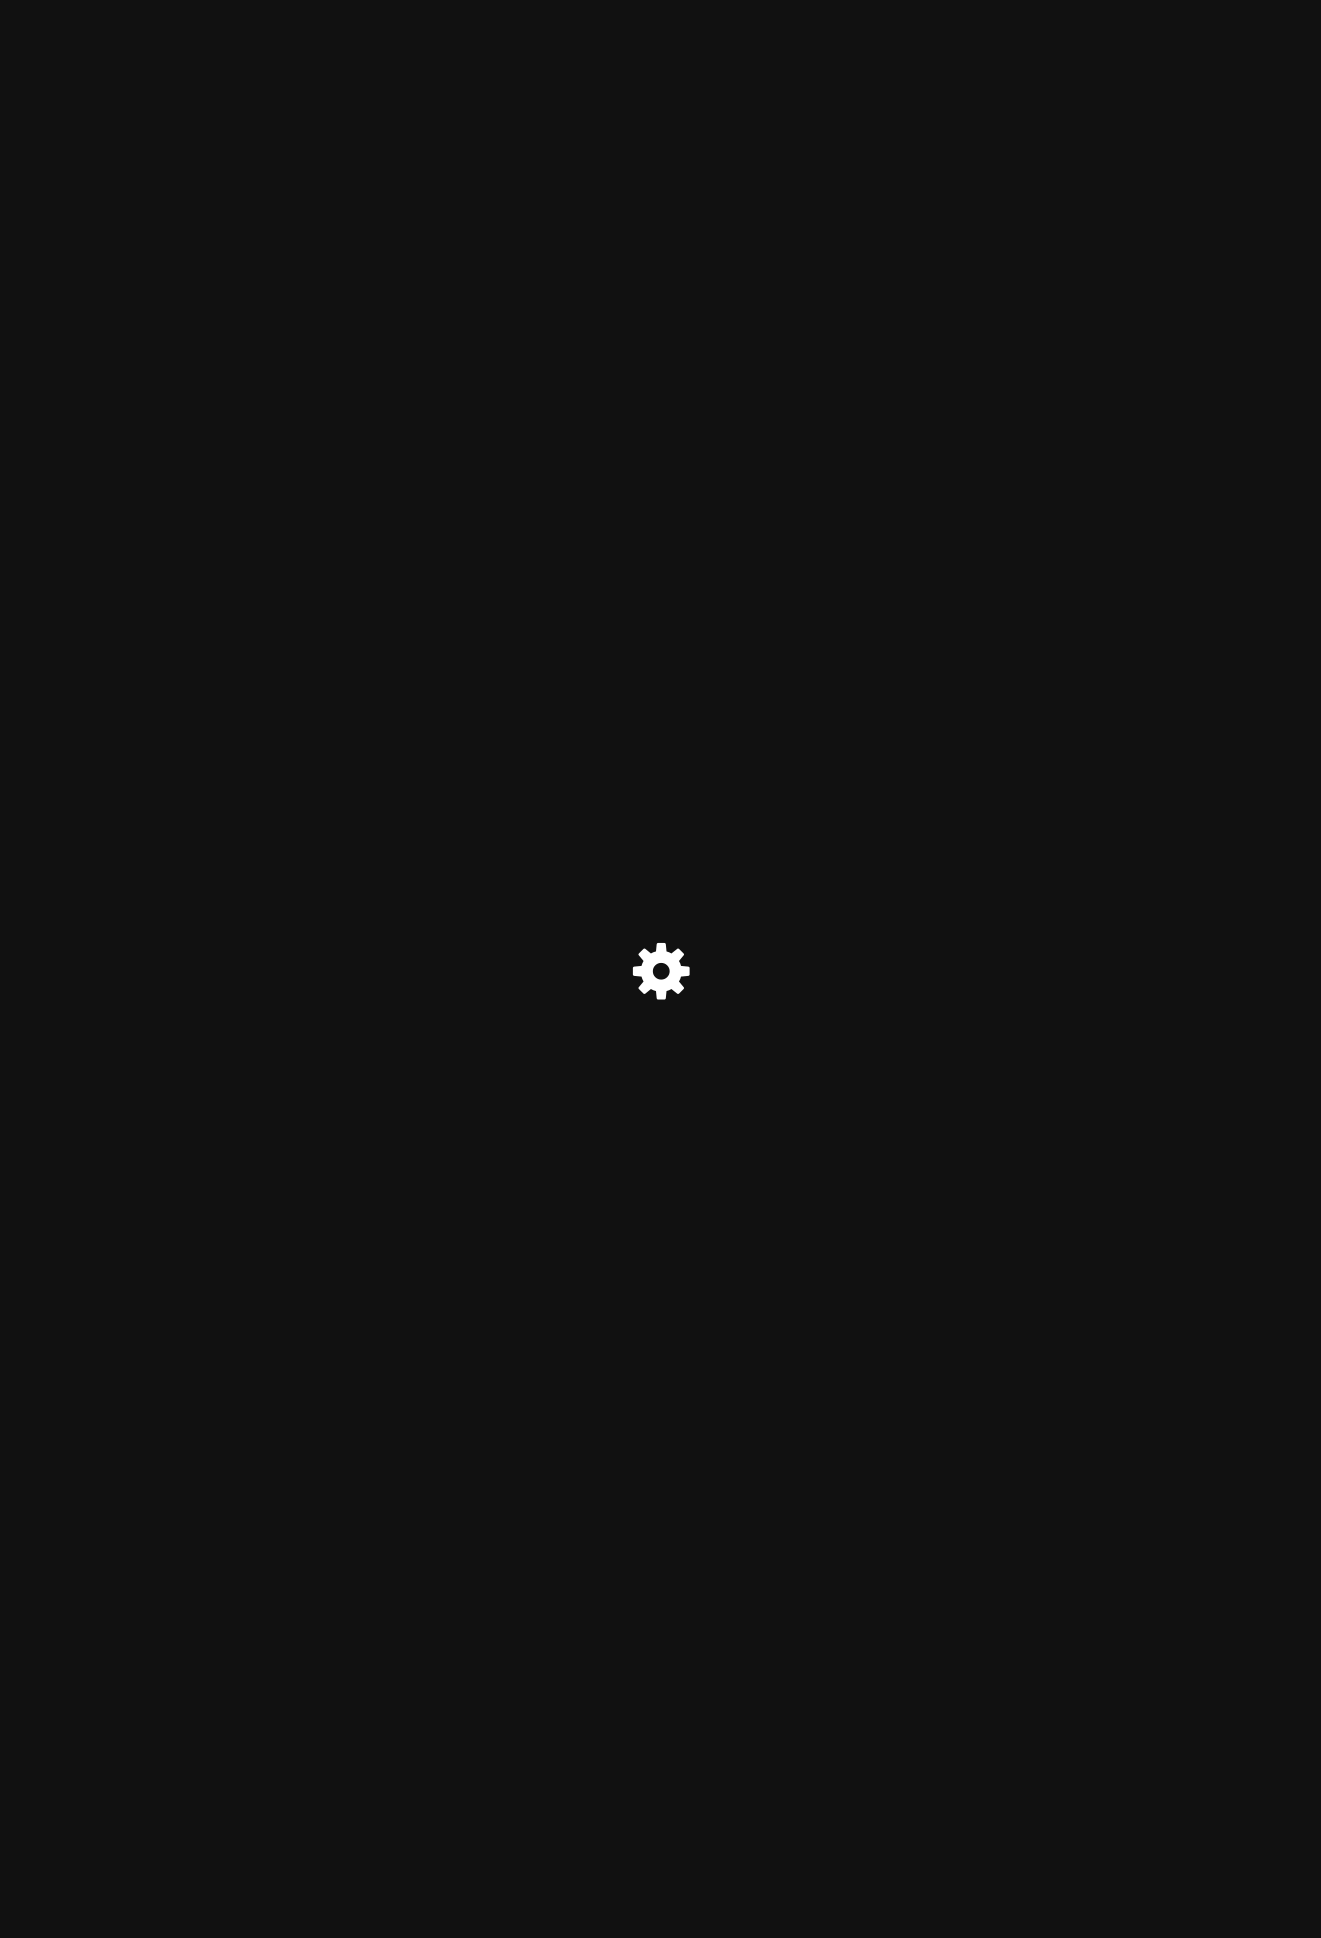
<svg xmlns="http://www.w3.org/2000/svg" width="1321" height="1938" viewBox="0 0 1321 1938">
  <rect width="100%" height="100%" fill="#111"/>
  <image x="632" y="942" width="58" height="58" href="images/1.png"/>
</svg>
